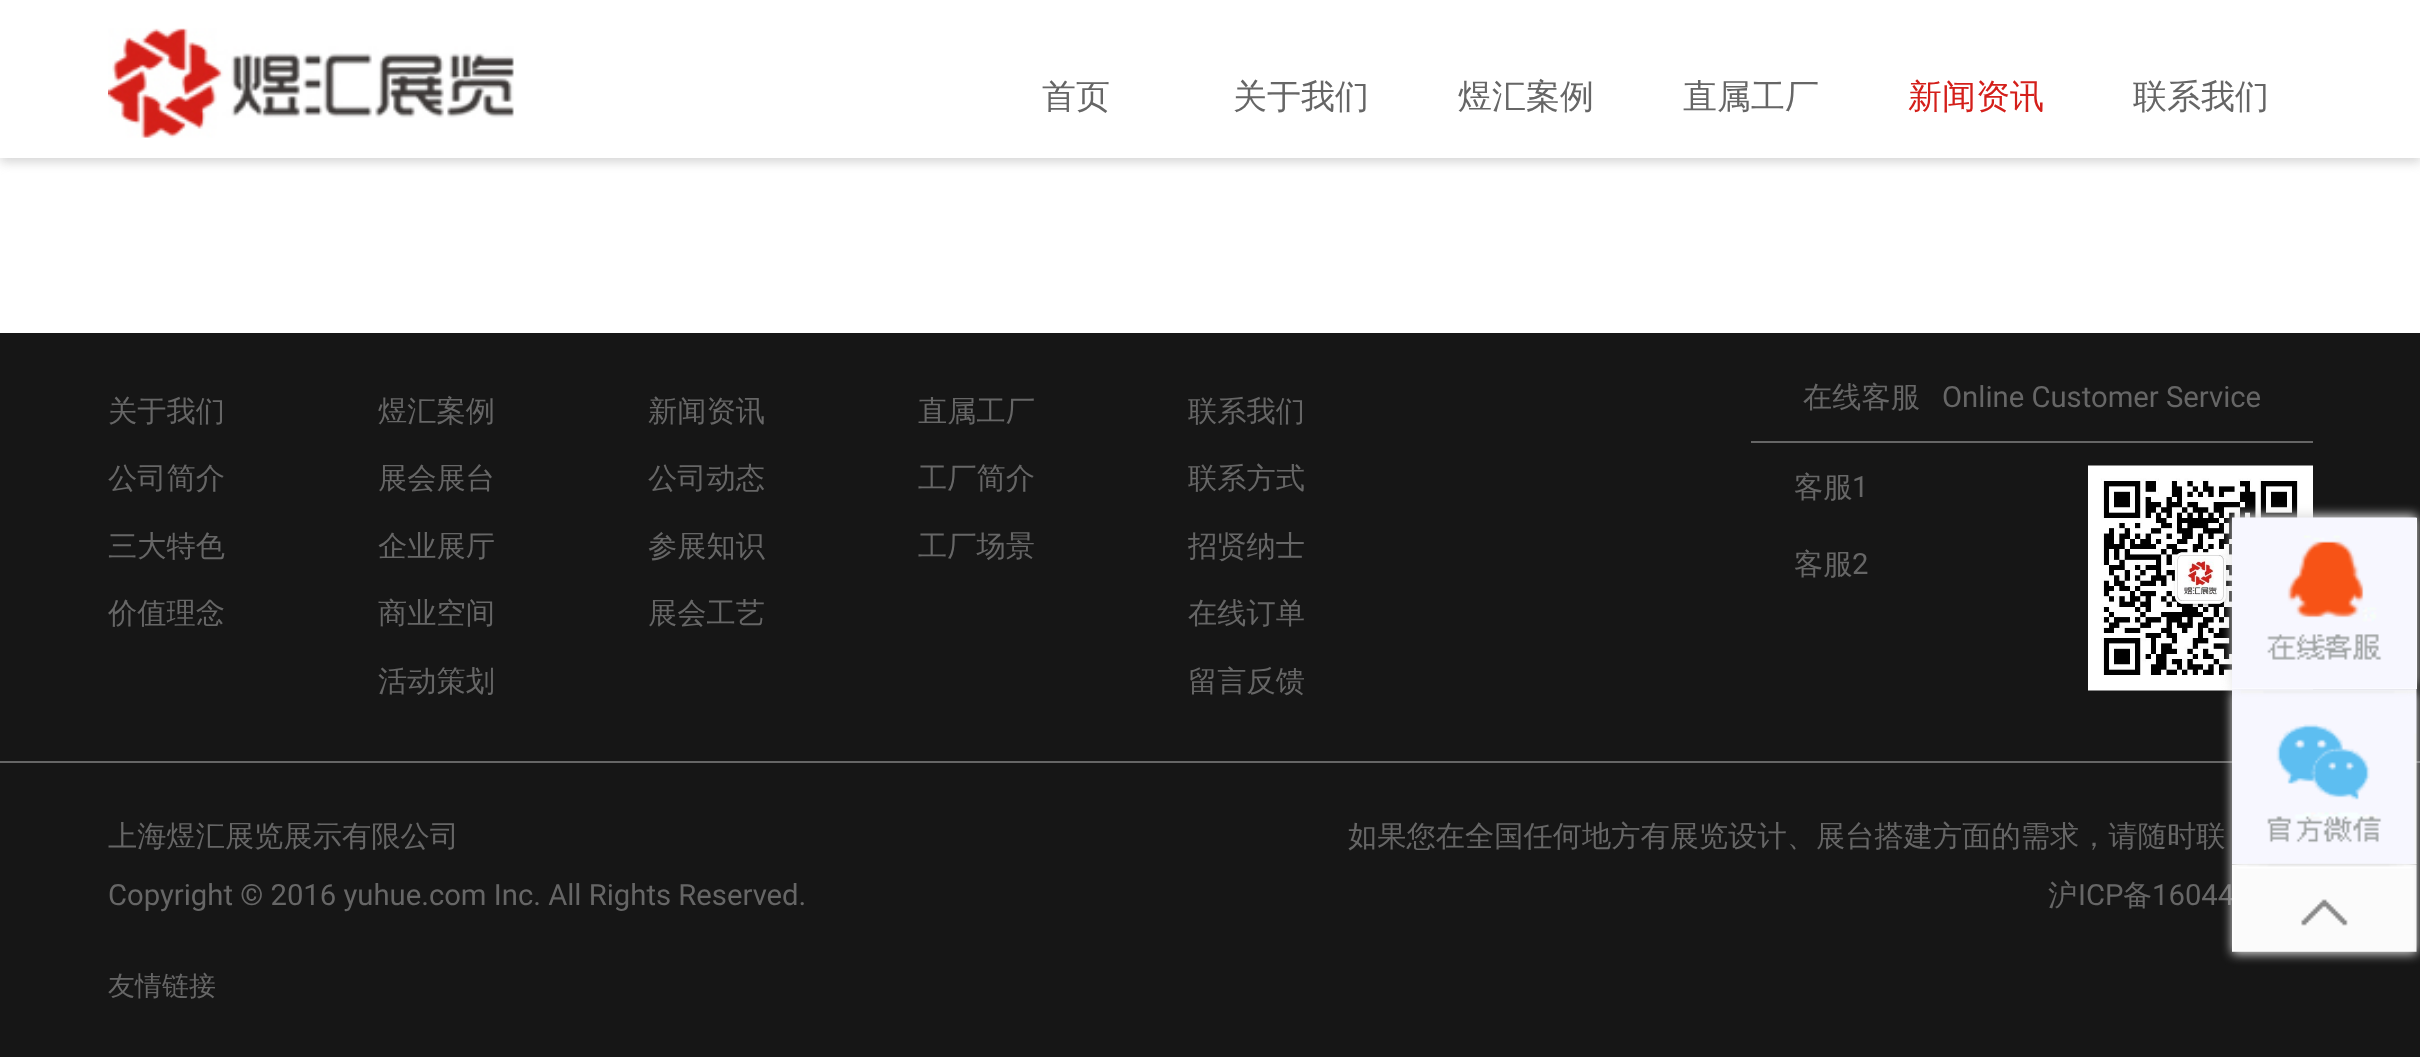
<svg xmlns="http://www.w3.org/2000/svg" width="2420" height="1057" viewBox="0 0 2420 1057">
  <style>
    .t1 { font: 500 34px WenQuanYi Zen Hei; fill: #666; }
    .t2 { font: 500 34px WenQuanYi Zen Hei; fill: #d41f1a; }
    .t3 { font: 500 29.25px WenQuanYi Zen Hei; fill: #666; }
    .t4 { font: 29.25px Roboto; fill: #666; }
    .t5 { font: 500 27px WenQuanYi Zen Hei; fill: #666; }
  </style>
  <rect width="100%" height="100%" fill="#fff"/>
  <rect x="0" y="5" width="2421" height="157" fill="#d4d4d4" filter="blur(5.5px)"/>
  <rect x="0" y="0" width="2420" height="158" fill="#fff"/>
  <image x="108" y="28" width="406" height="110" href="images/1.png"/>
  <text x="1042" y="108" class="t1">首页</text>
  <text x="1233" y="108" class="t1">关于我们</text>
  <text x="1458" y="108" class="t1">煜汇案例</text>
  <text x="1683" y="108" class="t1">直属工厂</text>
  <text x="1908" y="108" class="t2">新闻资讯</text>
  <text x="2133" y="108" class="t1">联系我们</text>
  <rect x="0" y="333" width="2420" height="724" fill="#161616"/>
  <text x="108" y="421" class="t3">关于我们</text>
  <text x="108" y="488" class="t3">公司简介</text>
  <text x="108" y="556" class="t3">三大特色</text>
  <text x="108" y="623" class="t3">价值理念</text>
  <text x="378" y="421" class="t3">煜汇案例</text>
  <text x="378" y="488" class="t3">展会展台</text>
  <text x="378" y="556" class="t3">企业展厅</text>
  <text x="378" y="623" class="t3">商业空间</text>
  <text x="378" y="691" class="t3">活动策划</text>
  <text x="648" y="421" class="t3">新闻资讯</text>
  <text x="648" y="488" class="t3">公司动态</text>
  <text x="648" y="556" class="t3">参展知识</text>
  <text x="648" y="623" class="t3">展会工艺</text>
  <text x="918" y="421" class="t3">直属工厂</text>
  <text x="918" y="488" class="t3">工厂简介</text>
  <text x="918" y="556" class="t3">工厂场景</text>
  <text x="1188" y="421" class="t3">联系我们</text>
  <text x="1188" y="488" class="t3">联系方式</text>
  <text x="1188" y="556" class="t3">招贤纳士</text>
  <text x="1188" y="623" class="t3">在线订单</text>
  <text x="1188" y="691" class="t3">留言反馈</text>
  <rect x="1751" y="441" width="562" height="2" fill="#666"/>
  <text x="1803" y="407" class="t3">在线客服</text>
  <text x="1942" y="407" class="t4">Online Customer Service</text>
  <text x="1794" y="497" class="t3">客服</text>
  <text x="1852" y="497" class="t4">1</text>
  <text x="1794" y="574" class="t3">客服</text>
  <text x="1852" y="574" class="t4">2</text>
  <image x="2088" y="465" width="225" height="226" href="images/2.png"/>
  <rect x="0" y="761" width="2420" height="2" fill="#666"/>
  <text x="108" y="846" class="t3">上海煜汇展览展示有限公司</text>
  <text x="108" y="905" class="t4">Copyright © 2016 yuhue.com Inc. All Rights Reserved.</text>
  <text x="1348" y="846" class="t3">如果您在全国任何地方有展览设计、展台搭建方面的需求，请随时联</text>
  <text x="2048" y="905" class="t3">沪</text>
  <text x="2078" y="905" class="t4">ICP</text>
  <text x="2123" y="905" class="t3">备</text>
  <text x="2152" y="905" class="t4">16044</text>
  <text x="108" y="995" class="t5">友情链接</text>
  <rect x="2232" y="691" width="185" height="263" fill="#ddd" filter="blur(5.5px)"/>
  <image x="2232" y="689" width="185" height="175" href="images/4.png"/>
  <rect x="2232" y="515" width="185" height="171" fill="#ddd" filter="blur(5.5px)"/>
  <rect x="2232" y="518" width="185" height="171" fill="#fff"/>
  <image x="2232" y="517" width="185" height="172" href="images/3.png"/>
  <image x="2232" y="863" width="185" height="89" href="images/5.png"/>
</svg>
